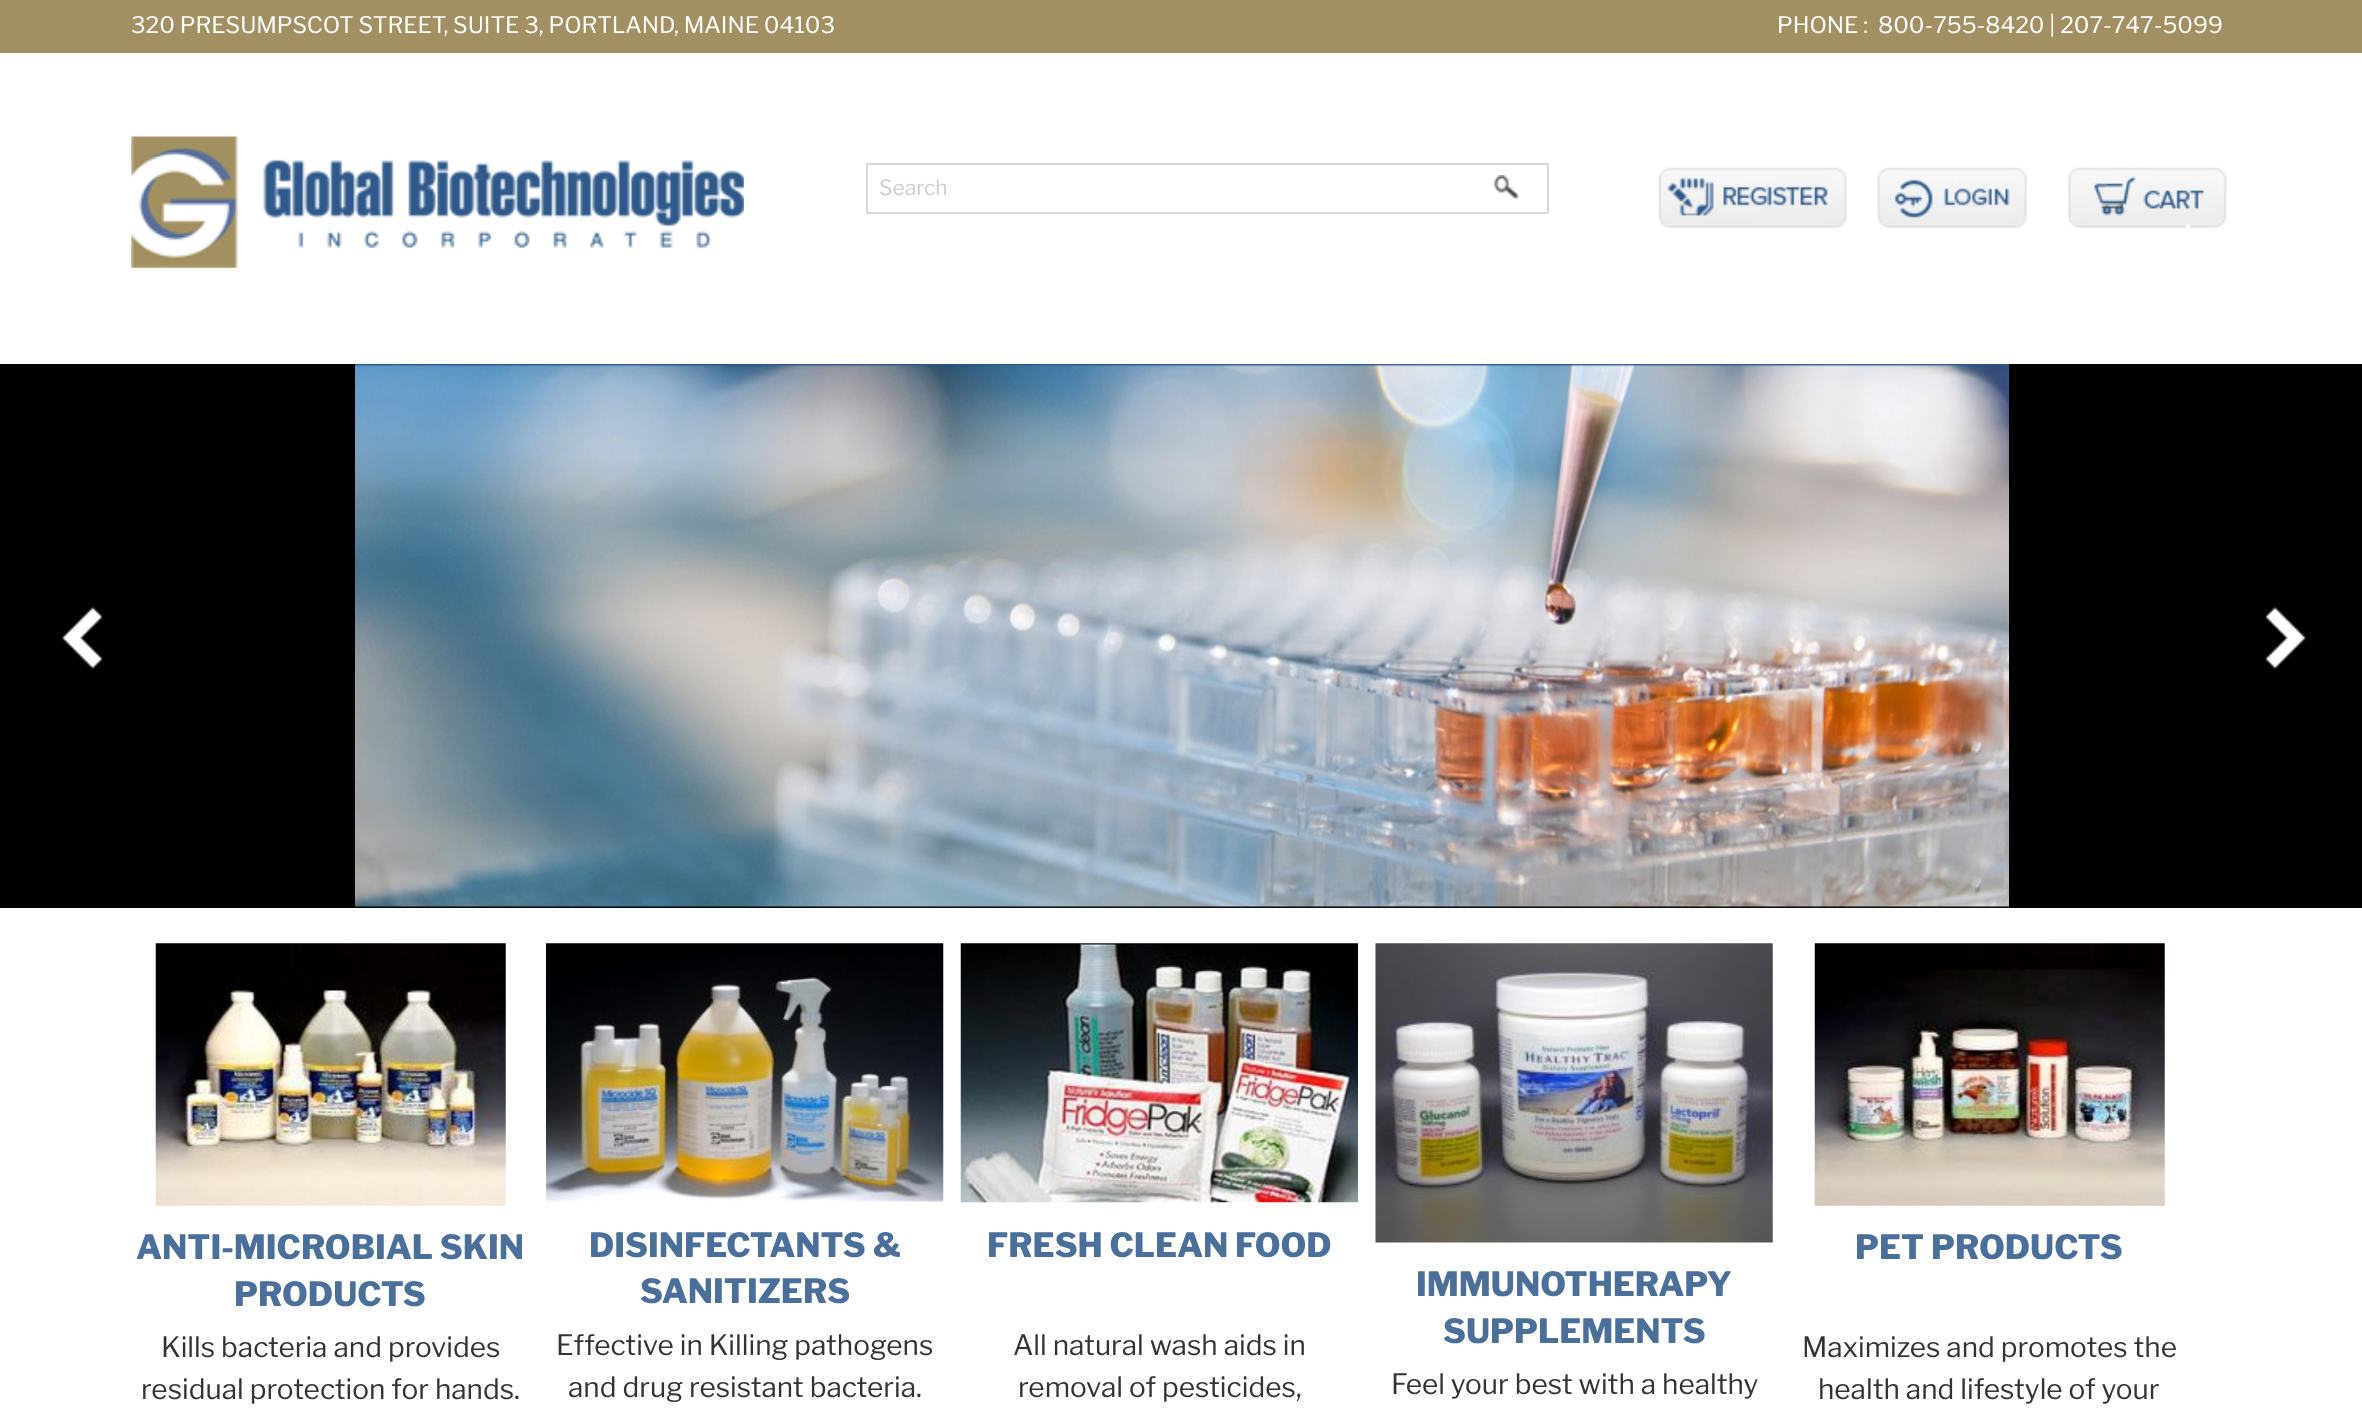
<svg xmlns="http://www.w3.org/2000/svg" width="2362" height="1426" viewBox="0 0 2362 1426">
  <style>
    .t1 { font: 100 22.75px Libre Franklin; fill: #fff; }
    .t2 { font: 100 21px Libre Franklin; fill: #ccc; }
    .t3 { font: 100 33.25px 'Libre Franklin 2'; fill: #4a6f9b; }
    .t4 { font: 100 28px Libre Franklin; fill: #333; }
  </style>
  <rect width="100%" height="100%" fill="#fff"/>
  <rect x="0" y="0" width="2362" height="53" fill="#a29062"/>
  <text x="131" y="33" class="t1">320 PRESUMPSCOT STREET, SUITE 3, PORTLAND, MAINE 04103</text>
  <text x="1777" y="33" class="t1">PHONE :</text>
  <text x="1878" y="33" class="t1">800-755-8420 | 207-747-5099</text>
  <image x="131" y="136" width="613" height="132" href="images/1.png"/>
  <image x="1493" y="175" width="26" height="25" href="images/2.png"/>
  <rect x="867" y="164" width="681" height="49" fill="none" stroke="#d8d8d8" stroke-width="2"/>
  <text x="879" y="195" class="t2">Search</text>
  <image x="1659" y="167" width="188" height="61" href="images/3.png"/>
  <image x="1877" y="167" width="150" height="61" href="images/4.png"/>
  <image x="2068" y="165" width="159" height="63" href="images/5.png"/>
  <rect x="2186" y="225" width="4" height="3" fill="#fff"/>
  <rect x="0" y="364" width="2362" height="544" fill="#000"/>
  <image x="62" y="607" width="40" height="62" href="images/6.png"/>
  <image x="355" y="364" width="1654" height="544" href="images/7.png"/>
  <image x="2265" y="607" width="41" height="62" href="images/8.png"/>
  <image x="155" y="943" width="351" height="263" href="images/9.png"/>
  <text x="136" y="1259" class="t3">ANTI-MICROBIAL SKIN</text>
  <text x="234" y="1306" class="t3">PRODUCTS</text>
  <text x="161" y="1357" class="t4">Kills bacteria and provides</text>
  <text x="141" y="1399" class="t4">residual protection for hands.</text>
  <image x="546" y="943" width="398" height="260" href="images/10.png"/>
  <text x="589" y="1257" class="t3">DISINFECTANTS &amp;</text>
  <text x="640" y="1303" class="t3">SANITIZERS</text>
  <text x="556" y="1355" class="t4">Effective in Killing pathogens</text>
  <text x="568" y="1397" class="t4">and drug resistant bacteria.</text>
  <image x="960" y="943" width="398" height="260" href="images/11.png"/>
  <text x="987" y="1257" class="t3">FRESH CLEAN FOOD</text>
  <text x="1013" y="1355" class="t4">All natural wash aids in</text>
  <text x="1018" y="1397" class="t4">removal of pesticides,</text>
  <image x="1375" y="943" width="398" height="300" href="images/12.png"/>
  <text x="1416" y="1296" class="t3">IMMUNOTHERAPY</text>
  <text x="1443" y="1343" class="t3">SUPPLEMENTS</text>
  <text x="1391" y="1394" class="t4">Feel your best with a healthy</text>
  <image x="1814" y="943" width="351" height="263" href="images/13.png"/>
  <text x="1855" y="1259" class="t3">PET PRODUCTS</text>
  <text x="1802" y="1357" class="t4">Maximizes and promotes the</text>
  <text x="1818" y="1399" class="t4">health and lifestyle of your</text>
</svg>
